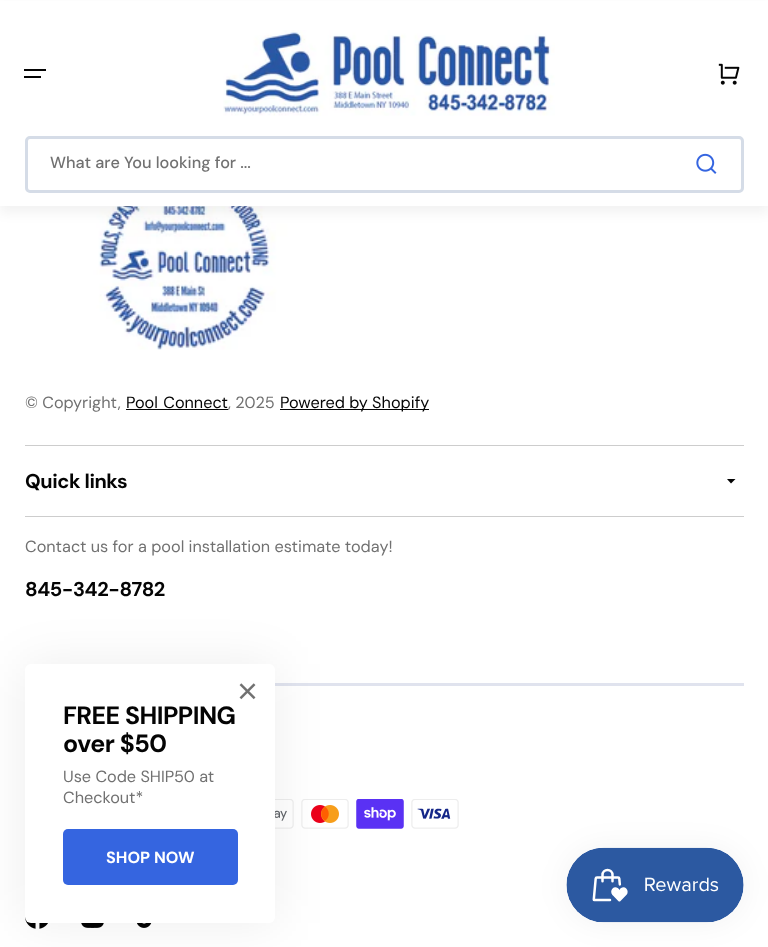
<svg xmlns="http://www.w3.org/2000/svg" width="768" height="947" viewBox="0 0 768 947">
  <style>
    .t1 { font: 500 16.25px DM Sans; fill: #717171; }
    .t2 { font: 16.25px DM Sans; fill: #717171; }
    .t3 { font: 16.25px DM Sans; fill: #040404; }
    .t4 { font: bold 20px DM Sans; letter-spacing: -0.4px; fill: #040404; }
    .t5 { font: bold 25px 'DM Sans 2'; letter-spacing: -0.5px; fill: #040404; }
    .t6 { font: bold 16.25px 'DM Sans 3'; fill: #fff; }
  </style>
  <rect width="100%" height="100%" fill="#fff"/>
  <image x="25" y="206" width="313" height="144" href="images/4.png"/>
  <rect x="0" y="6" width="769" height="207" fill="#0101010d" filter="blur(6px)"/>
  <rect x="0" y="1" width="768" height="205" fill="#fff"/>
  <rect x="24" y="69" width="22" height="2" fill="#040404"/>
  <rect x="24" y="76" width="17" height="2" fill="#040404"/>
  <image x="223" y="30" width="332" height="86" href="images/1.png"/>
  <image x="718" y="63" width="22" height="22" href="images/2.png"/>
  <rect x="26.5" y="137.5" width="716" height="54" rx="3.5" fill="none" stroke="#d5dce7" stroke-width="3"/>
  <text x="50" y="168" class="t1">What are You looking for ...</text>
  <image x="696" y="153" width="21" height="21" href="images/3.png"/>
  <text x="25" y="408" class="t2">© Copyright,</text>
  <text x="126" y="408" word-spacing="1" class="t3">Pool Connect</text>
  <text x="228" y="408" class="t2">, 2025</text>
  <rect x="126" y="409" width="102" height="1" fill="#040404"/>
  <rect x="280" y="409" width="149" height="1" fill="#040404"/>
  <text x="280" y="408" class="t3">Powered by Shopify</text>
  <rect x="25" y="445" width="719" height="1" fill="#cdcdcd"/>
  <rect x="25" y="516" width="719" height="1" fill="#cdcdcd"/>
  <text x="25" y="488" class="t4">Quick links</text>
  <path d="M731 483.5L727 479H735.5Z" fill="#040404"/>
  <text x="25" y="552" class="t2">Contact us for a pool installation estimate today!</text>
  <text x="25" y="596" class="t4">845-342-8782</text>
  <rect x="275" y="683" width="469" height="3" fill="#e0e3ee"/>
  <image x="275" y="799" width="19" height="30" href="images/5.png"/>
  <image x="301" y="799" width="48" height="30" href="images/6.png"/>
  <image x="356" y="799" width="48" height="30" href="images/7.png"/>
  <image x="411" y="799" width="48" height="30" href="images/8.png"/>
  <image x="25" y="917" width="23" height="12" href="images/9.png"/>
  <image x="81" y="923" width="23" height="5" href="images/10.png"/>
  <image x="137" y="923" width="15" height="5" href="images/11.png"/>
  <rect x="25" y="664" width="250" height="259" fill="#00000012" filter="blur(25px)"/>
  <rect x="25" y="664" width="250" height="259" rx="6" fill="#fff"/>
  <image x="239" y="683" width="17" height="17" href="images/12.png"/>
  <text x="63" y="724" class="t5">FREE SHIPPING</text>
  <text x="63" y="752" class="t5">over $50</text>
  <text x="63" y="782" class="t2">Use Code SHIP50 at</text>
  <text x="63" y="803" class="t2">Checkout*</text>
  <rect x="63" y="829" width="175" height="56" rx="5" fill="#3565e0"/>
  <text x="106" y="863" class="t6">SHOP NOW</text>
  <rect x="566" y="848" width="178" height="75" rx="37.5" fill="#0000000d" filter="blur(15.5px)"/>
  <image x="566" y="847" width="178" height="76" href="images/13.png"/>
</svg>
